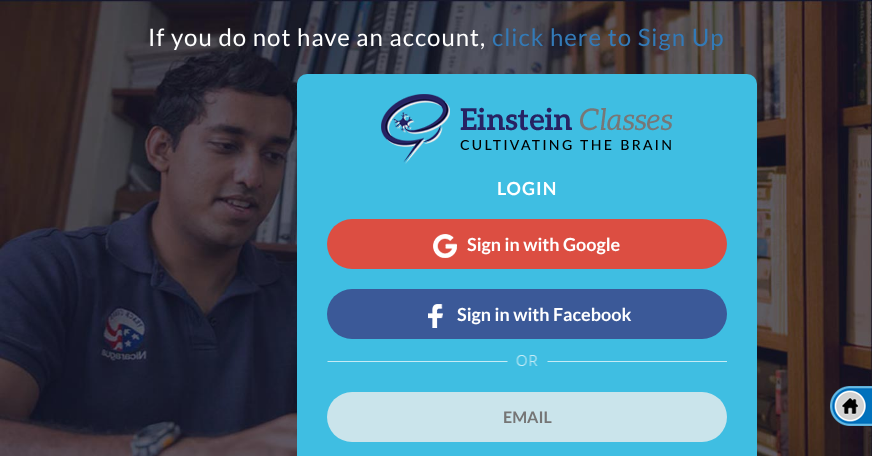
<svg xmlns="http://www.w3.org/2000/svg" width="872" height="456" viewBox="0 0 872 456">
  <style>
    .t1 { font: 24px Lato; letter-spacing: 1px; fill: #fff; }
    .t2 { font: 24px Lato; letter-spacing: 1px; fill: #337ab7; }
    .t3 { font: bold 18px Lato; letter-spacing: 1px; fill: #fff; }
    .t4 { font: bold 18px Lato; fill: #fff; }
    .t5 { font: bold 16px Lato; fill: #757575; }
  </style>
  <rect width="100%" height="100%" fill="#fff"/>
  <image x="0" y="0" width="872" height="456" href="images/1.png"/>
  <text x="148" y="46" class="t1">If you do not have an account,</text>
  <text x="492" y="46" class="t2">click here to Sign Up</text>
  <rect x="297" y="74" width="460" height="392" rx="10" fill="#3fbee2"/>
  <image x="381" y="94" width="292" height="70" href="images/2.png"/>
  <text x="497" y="195" class="t3">LOGIN</text>
  <rect x="327" y="219" width="400" height="50" rx="25" fill="#dc4e42"/>
  <image x="433" y="234" width="24" height="24" href="images/3.png"/>
  <text x="467" y="251" class="t4">Sign in with Google</text>
  <rect x="327" y="289" width="400" height="50" rx="25" fill="#3b5998"/>
  <image x="428" y="304" width="15" height="24" href="images/4.png"/>
  <text x="457" y="321" class="t4">Sign in with Facebook</text>
  <image x="327" y="355" width="400" height="11" href="images/5.png"/>
  <rect x="327" y="392" width="400" height="50" rx="25" fill="#cae4eb"/>
  <text x="503" y="423" class="t5">EMAIL</text>
  <image x="830" y="386" width="42" height="40" href="images/6.png"/>
</svg>
